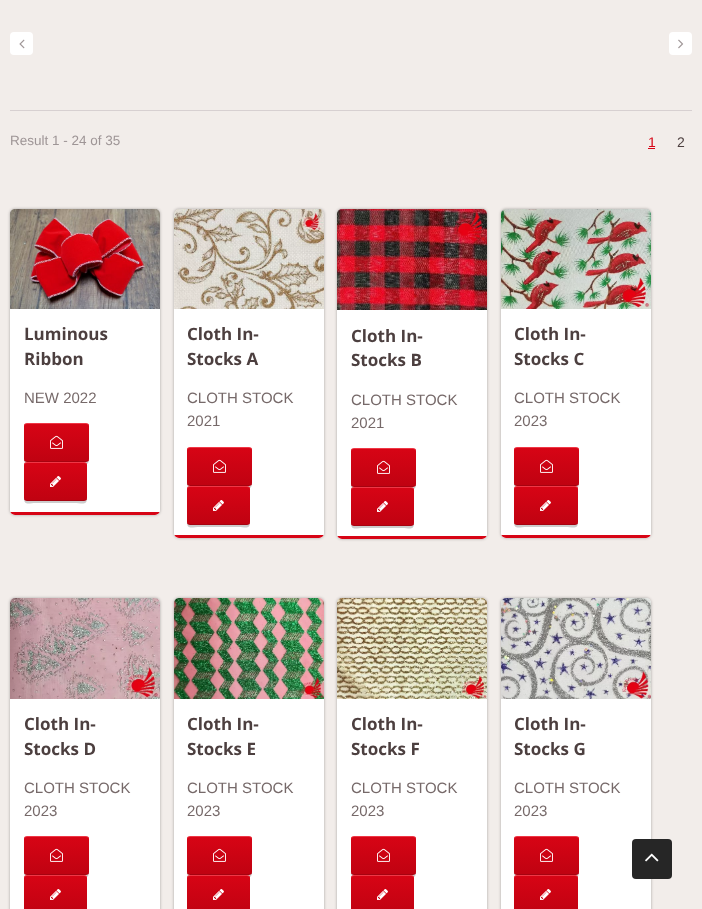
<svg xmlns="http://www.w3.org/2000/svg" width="702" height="909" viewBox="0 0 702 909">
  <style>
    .t1 { font: 13.5px Liberation Sans; fill: #9e9596; }
    .t2 { font: 14px Liberation Sans; fill: #d70415; }
    .t3 { font: 14px Liberation Sans; fill: #4c3f3f; }
    .t4 { font: bold 17px Open Sans; fill: #4c3f3f; }
    .t5 { font: 15px Liberation Sans; fill: #766969; }
  </style>
  <defs>
    <clipPath id="clip1"><rect x="24" y="423" width="65" height="39" rx="3"/></clipPath>
    <linearGradient id="g1" gradientUnits="userSpaceOnUse" x1="57" y1="424" x2="57" y2="461"><stop offset="0" stop-color="#d70415"/><stop offset="1" stop-color="#c00211"/></linearGradient>
    <clipPath id="clip2"><rect x="24" y="462" width="63" height="39" rx="3"/></clipPath>
    <linearGradient id="g2" gradientUnits="userSpaceOnUse" x1="56" y1="463" x2="56" y2="500"><stop offset="0" stop-color="#d70415"/><stop offset="1" stop-color="#c00211"/></linearGradient>
    <clipPath id="clip3"><rect x="10" y="209" width="150" height="306" rx="5"/></clipPath>
    <clipPath id="clip4"><rect x="187" y="447" width="65" height="39" rx="3"/></clipPath>
    <linearGradient id="g3" gradientUnits="userSpaceOnUse" x1="220" y1="448" x2="220" y2="485"><stop offset="0" stop-color="#d70415"/><stop offset="1" stop-color="#c00211"/></linearGradient>
    <clipPath id="clip5"><rect x="187" y="486" width="63" height="39" rx="3"/></clipPath>
    <linearGradient id="g4" gradientUnits="userSpaceOnUse" x1="219" y1="487" x2="219" y2="524"><stop offset="0" stop-color="#d70415"/><stop offset="1" stop-color="#c00211"/></linearGradient>
    <clipPath id="clip6"><rect x="174" y="209" width="150" height="329" rx="5"/></clipPath>
    <clipPath id="clip7"><rect x="351" y="448" width="65" height="39" rx="3"/></clipPath>
    <linearGradient id="g5" gradientUnits="userSpaceOnUse" x1="384" y1="449" x2="384" y2="486"><stop offset="0" stop-color="#d70415"/><stop offset="1" stop-color="#c00211"/></linearGradient>
    <clipPath id="clip8"><rect x="351" y="487" width="63" height="39" rx="3"/></clipPath>
    <linearGradient id="g6" gradientUnits="userSpaceOnUse" x1="383" y1="488" x2="383" y2="525"><stop offset="0" stop-color="#d70415"/><stop offset="1" stop-color="#c00211"/></linearGradient>
    <clipPath id="clip9"><rect x="337" y="209" width="150" height="330" rx="5"/></clipPath>
    <clipPath id="clip10"><rect x="514" y="447" width="65" height="39" rx="3"/></clipPath>
    <linearGradient id="g7" gradientUnits="userSpaceOnUse" x1="547" y1="448" x2="547" y2="485"><stop offset="0" stop-color="#d70415"/><stop offset="1" stop-color="#c00211"/></linearGradient>
    <clipPath id="clip11"><rect x="514" y="486" width="64" height="39" rx="3"/></clipPath>
    <linearGradient id="g8" gradientUnits="userSpaceOnUse" x1="546" y1="487" x2="546" y2="524"><stop offset="0" stop-color="#d70415"/><stop offset="1" stop-color="#c00211"/></linearGradient>
    <clipPath id="clip12"><rect x="501" y="209" width="150" height="329" rx="5"/></clipPath>
    <clipPath id="clip13"><rect x="24" y="836" width="65" height="39" rx="3"/></clipPath>
    <linearGradient id="g9" gradientUnits="userSpaceOnUse" x1="57" y1="837" x2="57" y2="874"><stop offset="0" stop-color="#d70415"/><stop offset="1" stop-color="#c00211"/></linearGradient>
    <clipPath id="clip14"><rect x="24" y="875" width="63" height="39" rx="3"/></clipPath>
    <linearGradient id="g10" gradientUnits="userSpaceOnUse" x1="56" y1="876" x2="56" y2="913"><stop offset="0" stop-color="#d70415"/><stop offset="1" stop-color="#c00211"/></linearGradient>
    <clipPath id="clip15"><rect x="187" y="836" width="65" height="39" rx="3"/></clipPath>
    <linearGradient id="g11" gradientUnits="userSpaceOnUse" x1="220" y1="837" x2="220" y2="874"><stop offset="0" stop-color="#d70415"/><stop offset="1" stop-color="#c00211"/></linearGradient>
    <clipPath id="clip16"><rect x="187" y="875" width="63" height="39" rx="3"/></clipPath>
    <linearGradient id="g12" gradientUnits="userSpaceOnUse" x1="219" y1="876" x2="219" y2="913"><stop offset="0" stop-color="#d70415"/><stop offset="1" stop-color="#c00211"/></linearGradient>
    <clipPath id="clip17"><rect x="351" y="836" width="65" height="39" rx="3"/></clipPath>
    <linearGradient id="g13" gradientUnits="userSpaceOnUse" x1="384" y1="837" x2="384" y2="874"><stop offset="0" stop-color="#d70415"/><stop offset="1" stop-color="#c00211"/></linearGradient>
    <clipPath id="clip18"><rect x="351" y="875" width="63" height="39" rx="3"/></clipPath>
    <linearGradient id="g14" gradientUnits="userSpaceOnUse" x1="383" y1="876" x2="383" y2="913"><stop offset="0" stop-color="#d70415"/><stop offset="1" stop-color="#c00211"/></linearGradient>
    <clipPath id="clip19"><rect x="514" y="836" width="65" height="39" rx="3"/></clipPath>
    <linearGradient id="g15" gradientUnits="userSpaceOnUse" x1="547" y1="837" x2="547" y2="874"><stop offset="0" stop-color="#d70415"/><stop offset="1" stop-color="#c00211"/></linearGradient>
    <clipPath id="clip20"><rect x="514" y="875" width="64" height="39" rx="3"/></clipPath>
    <linearGradient id="g16" gradientUnits="userSpaceOnUse" x1="546" y1="876" x2="546" y2="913"><stop offset="0" stop-color="#d70415"/><stop offset="1" stop-color="#c00211"/></linearGradient>
  </defs>
  <rect width="100%" height="100%" fill="#f2edea"/>
  <rect x="10" y="32" width="23" height="23" rx="4" fill="#fff"/>
  <image x="19" y="39" width="6" height="10" href="images/1.png"/>
  <rect x="669" y="32" width="23" height="23" rx="4" fill="#fff"/>
  <image x="678" y="39" width="6" height="10" href="images/2.png"/>
  <rect x="10" y="110" width="682" height="1" fill="#d7d0d1"/>
  <text x="10" y="145" class="t1">Result 1 - 24 of 35</text>
  <text x="648" y="147" class="t2">1</text>
  <rect x="648" y="148" width="7" height="1" fill="#d70415"/>
  <text x="677" y="147" class="t3">2</text>
  <rect x="10" y="209" width="150" height="306" rx="5" fill="#0000004d" filter="blur(1.5px)"/>
  <image x="10" y="209" width="150" height="100" href="images/3.png"/>
  <path d="M10 309H160V510C160 513 158 515 155 515H15C12 515 10 513 10 510Z" fill="#fff"/>
  <text x="24" y="340" class="t4">Luminous</text>
  <text x="24" y="365" class="t4">Ribbon</text>
  <text x="24" y="403" class="t5">NEW 2022</text>
  <path d="M24 459C24 467 30 464 37 464H76C83 464 89 467 89 459C89 461 88 462 86 462H27C25 462 24 461 24 459Z" fill="#ccc"/>
  <g clip-path="url(#clip1)">
    <rect x="24" y="424" width="65" height="37" fill="url(#g1)"/>
  </g>
  <path d="M27 423H86C88 423 89 424 89 426C89 425 88 424 86 424H27C25 424 24 425 24 426C24 424 25 423 27 423Z" fill="#ef3746"/>
  <path d="M86 462H27C25 462 24 461 24 459C24 460 25 461 27 461H86C88 461 89 460 89 459C89 461 88 462 86 462Z" fill="#a60310"/>
  <image x="50" y="435" width="13" height="14" href="images/4.png"/>
  <path d="M24 498C24 506 29 503 36 503H74C82 503 87 506 87 498C87 500 86 501 84 501H27C25 501 24 500 24 498Z" fill="#ccc"/>
  <g clip-path="url(#clip2)">
    <rect x="24" y="463" width="63" height="37" fill="url(#g2)"/>
  </g>
  <path d="M27 462H84C86 462 87 463 87 465C87 464 86 463 84 463H27C25 463 24 464 24 465C24 463 25 462 27 462Z" fill="#ef3746"/>
  <path d="M84 501H27C25 501 24 500 24 498C24 499 25 500 27 500H84C86 500 87 499 87 498C87 500 86 501 84 501Z" fill="#a60310"/>
  <image x="50" y="476" width="11" height="11" href="images/5.png"/>
  <g clip-path="url(#clip3)">
    <rect x="10" y="512" width="150" height="3" fill="#d70415"/>
  </g>
  <rect x="174" y="209" width="150" height="329" rx="5" fill="#0000004d" filter="blur(1.5px)"/>
  <image x="174" y="209" width="150" height="100" href="images/6.png"/>
  <path d="M174 309H324V533C324 536 322 538 319 538H179C176 538 174 536 174 533Z" fill="#fff"/>
  <text x="187" y="340" class="t4">Cloth In-</text>
  <text x="187" y="365" class="t4">Stocks A</text>
  <text x="187" y="403" class="t5">CLOTH STOCK</text>
  <text x="187" y="426" class="t5">2021</text>
  <path d="M187 483C187 491 193 488 200 488H239C246 488 252 491 252 483C252 485 251 486 249 486H190C188 486 187 485 187 483Z" fill="#ccc"/>
  <g clip-path="url(#clip4)">
    <rect x="187" y="448" width="65" height="37" fill="url(#g3)"/>
  </g>
  <path d="M190 447H249C251 447 252 448 252 450C252 449 251 448 249 448H190C188 448 187 449 187 450C187 448 188 447 190 447Z" fill="#ef3746"/>
  <path d="M249 486H190C188 486 187 485 187 483C187 484 188 485 190 485H249C251 485 252 484 252 483C252 485 251 486 249 486Z" fill="#a60310"/>
  <image x="213" y="459" width="13" height="14" href="images/4.png"/>
  <path d="M187 522C187 530 192 527 200 527H238C245 527 250 530 250 522C250 524 249 525 247 525H190C188 525 187 524 187 522Z" fill="#ccc"/>
  <g clip-path="url(#clip5)">
    <rect x="187" y="487" width="63" height="37" fill="url(#g4)"/>
  </g>
  <path d="M190 486H247C249 486 250 487 250 489C250 488 249 487 247 487H190C188 487 187 488 187 489C187 487 188 486 190 486Z" fill="#ef3746"/>
  <path d="M247 525H190C188 525 187 524 187 522C187 523 188 524 190 524H247C249 524 250 523 250 522C250 524 249 525 247 525Z" fill="#a60310"/>
  <image x="213" y="500" width="11" height="11" href="images/5.png"/>
  <g clip-path="url(#clip6)">
    <rect x="174" y="535" width="150" height="3" fill="#d70415"/>
  </g>
  <rect x="337" y="209" width="150" height="330" rx="5" fill="#0000004d" filter="blur(1.5px)"/>
  <image x="337" y="209" width="150" height="101" href="images/7.png"/>
  <path d="M337 310H487V534C487 537 485 539 482 539H342C339 539 337 537 337 534Z" fill="#fff"/>
  <text x="351" y="342" class="t4">Cloth In-</text>
  <text x="351" y="366" class="t4">Stocks B</text>
  <text x="351" y="405" class="t5">CLOTH STOCK</text>
  <text x="351" y="428" class="t5">2021</text>
  <path d="M351 484C351 492 357 489 364 489H403C410 489 416 492 416 484C416 486 415 487 413 487H354C352 487 351 486 351 484Z" fill="#ccc"/>
  <g clip-path="url(#clip7)">
    <rect x="351" y="449" width="65" height="37" fill="url(#g5)"/>
  </g>
  <path d="M354 448H413C415 448 416 449 416 451C416 450 415 449 413 449H354C352 449 351 450 351 451C351 449 352 448 354 448Z" fill="#ef3746"/>
  <path d="M413 487H354C352 487 351 486 351 484C351 485 352 486 354 486H413C415 486 416 485 416 484C416 486 415 487 413 487Z" fill="#a60310"/>
  <image x="377" y="460" width="13" height="14" href="images/4.png"/>
  <path d="M351 523C351 531 356 528 364 528H402C409 528 414 531 414 523C414 525 413 526 411 526H354C352 526 351 525 351 523Z" fill="#ccc"/>
  <g clip-path="url(#clip8)">
    <rect x="351" y="488" width="63" height="37" fill="url(#g6)"/>
  </g>
  <path d="M354 487H411C413 487 414 488 414 490C414 489 413 488 411 488H354C352 488 351 489 351 490C351 488 352 487 354 487Z" fill="#ef3746"/>
  <path d="M411 526H354C352 526 351 525 351 523C351 524 352 525 354 525H411C413 525 414 524 414 523C414 525 413 526 411 526Z" fill="#a60310"/>
  <image x="377" y="501" width="11" height="11" href="images/5.png"/>
  <g clip-path="url(#clip9)">
    <rect x="337" y="536" width="150" height="3" fill="#d70415"/>
  </g>
  <rect x="501" y="209" width="150" height="329" rx="5" fill="#0000004d" filter="blur(1.5px)"/>
  <image x="501" y="209" width="150" height="100" href="images/8.png"/>
  <path d="M501 309H651V533C651 536 649 538 646 538H506C503 538 501 536 501 533Z" fill="#fff"/>
  <text x="514" y="340" class="t4">Cloth In-</text>
  <text x="514" y="365" class="t4">Stocks C</text>
  <text x="514" y="403" class="t5">CLOTH STOCK</text>
  <text x="514" y="426" class="t5">2023</text>
  <path d="M514 483C514 491 520 488 527 488H566C573 488 579 491 579 483C579 485 578 486 576 486H517C515 486 514 485 514 483Z" fill="#ccc"/>
  <g clip-path="url(#clip10)">
    <rect x="514" y="448" width="65" height="37" fill="url(#g7)"/>
  </g>
  <path d="M517 447H576C578 447 579 448 579 450C579 449 578 448 576 448H517C515 448 514 449 514 450C514 448 515 447 517 447Z" fill="#ef3746"/>
  <path d="M576 486H517C515 486 514 485 514 483C514 484 515 485 517 485H576C578 485 579 484 579 483C579 485 578 486 576 486Z" fill="#a60310"/>
  <image x="540" y="459" width="13" height="14" href="images/4.png"/>
  <path d="M514 522C514 530 519 527 527 527H565C573 527 578 530 578 522C578 524 577 525 575 525H517C515 525 514 524 514 522Z" fill="#ccc"/>
  <g clip-path="url(#clip11)">
    <rect x="514" y="487" width="64" height="37" fill="url(#g8)"/>
  </g>
  <path d="M517 486H575C577 486 578 487 578 489C578 488 577 487 575 487H517C515 487 514 488 514 489C514 487 515 486 517 486Z" fill="#ef3746"/>
  <path d="M575 525H517C515 525 514 524 514 522C514 523 515 524 517 524H575C577 524 578 523 578 522C578 524 577 525 575 525Z" fill="#a60310"/>
  <image x="540" y="500" width="11" height="11" href="images/5.png"/>
  <g clip-path="url(#clip12)">
    <rect x="501" y="535" width="150" height="3" fill="#d70415"/>
  </g>
  <rect x="10" y="598" width="150" height="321" rx="5" fill="#0000004d" filter="blur(1.5px)"/>
  <rect x="10" y="598" width="150" height="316" rx="5" fill="#fff"/>
  <image x="10" y="598" width="150" height="101" href="images/9.png"/>
  <text x="24" y="730" class="t4">Cloth In-</text>
  <text x="24" y="755" class="t4">Stocks D</text>
  <text x="24" y="793" class="t5">CLOTH STOCK</text>
  <text x="24" y="816" class="t5">2023</text>
  <path d="M24 872C24 880 30 877 37 877H76C83 877 89 880 89 872C89 874 88 875 86 875H27C25 875 24 874 24 872Z" fill="#ccc"/>
  <g clip-path="url(#clip13)">
    <rect x="24" y="837" width="65" height="37" fill="url(#g9)"/>
  </g>
  <path d="M27 836H86C88 836 89 837 89 839C89 838 88 837 86 837H27C25 837 24 838 24 839C24 837 25 836 27 836Z" fill="#ef3746"/>
  <path d="M86 875H27C25 875 24 874 24 872C24 873 25 874 27 874H86C88 874 89 873 89 872C89 874 88 875 86 875Z" fill="#a60310"/>
  <image x="50" y="848" width="13" height="14" href="images/4.png"/>
  <g clip-path="url(#clip14)">
    <rect x="24" y="876" width="63" height="33" fill="url(#g10)"/>
  </g>
  <path d="M27 875H84C86 875 87 876 87 878C87 877 86 876 84 876H27C25 876 24 877 24 878C24 876 25 875 27 875Z" fill="#ef3746"/>
  <image x="50" y="889" width="11" height="11" href="images/5.png"/>
  <rect x="174" y="598" width="150" height="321" rx="5" fill="#0000004d" filter="blur(1.5px)"/>
  <rect x="174" y="598" width="150" height="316" rx="5" fill="#fff"/>
  <image x="174" y="598" width="150" height="101" href="images/10.png"/>
  <text x="187" y="730" class="t4">Cloth In-</text>
  <text x="187" y="755" class="t4">Stocks E</text>
  <text x="187" y="793" class="t5">CLOTH STOCK</text>
  <text x="187" y="816" class="t5">2023</text>
  <path d="M187 872C187 880 193 877 200 877H239C246 877 252 880 252 872C252 874 251 875 249 875H190C188 875 187 874 187 872Z" fill="#ccc"/>
  <g clip-path="url(#clip15)">
    <rect x="187" y="837" width="65" height="37" fill="url(#g11)"/>
  </g>
  <path d="M190 836H249C251 836 252 837 252 839C252 838 251 837 249 837H190C188 837 187 838 187 839C187 837 188 836 190 836Z" fill="#ef3746"/>
  <path d="M249 875H190C188 875 187 874 187 872C187 873 188 874 190 874H249C251 874 252 873 252 872C252 874 251 875 249 875Z" fill="#a60310"/>
  <image x="213" y="848" width="13" height="14" href="images/4.png"/>
  <g clip-path="url(#clip16)">
    <rect x="187" y="876" width="63" height="33" fill="url(#g12)"/>
  </g>
  <path d="M190 875H247C249 875 250 876 250 878C250 877 249 876 247 876H190C188 876 187 877 187 878C187 876 188 875 190 875Z" fill="#ef3746"/>
  <image x="213" y="889" width="11" height="11" href="images/5.png"/>
  <rect x="337" y="598" width="150" height="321" rx="5" fill="#0000004d" filter="blur(1.5px)"/>
  <rect x="337" y="598" width="150" height="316" rx="5" fill="#fff"/>
  <image x="337" y="598" width="150" height="101" href="images/11.png"/>
  <text x="351" y="730" class="t4">Cloth In-</text>
  <text x="351" y="755" class="t4">Stocks F</text>
  <text x="351" y="793" class="t5">CLOTH STOCK</text>
  <text x="351" y="816" class="t5">2023</text>
  <path d="M351 872C351 880 357 877 364 877H403C410 877 416 880 416 872C416 874 415 875 413 875H354C352 875 351 874 351 872Z" fill="#ccc"/>
  <g clip-path="url(#clip17)">
    <rect x="351" y="837" width="65" height="37" fill="url(#g13)"/>
  </g>
  <path d="M354 836H413C415 836 416 837 416 839C416 838 415 837 413 837H354C352 837 351 838 351 839C351 837 352 836 354 836Z" fill="#ef3746"/>
  <path d="M413 875H354C352 875 351 874 351 872C351 873 352 874 354 874H413C415 874 416 873 416 872C416 874 415 875 413 875Z" fill="#a60310"/>
  <image x="377" y="848" width="13" height="14" href="images/4.png"/>
  <g clip-path="url(#clip18)">
    <rect x="351" y="876" width="63" height="33" fill="url(#g14)"/>
  </g>
  <path d="M354 875H411C413 875 414 876 414 878C414 877 413 876 411 876H354C352 876 351 877 351 878C351 876 352 875 354 875Z" fill="#ef3746"/>
  <image x="377" y="889" width="11" height="11" href="images/5.png"/>
  <rect x="501" y="598" width="150" height="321" rx="5" fill="#0000004d" filter="blur(1.5px)"/>
  <rect x="501" y="598" width="150" height="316" rx="5" fill="#fff"/>
  <image x="501" y="598" width="150" height="101" href="images/12.png"/>
  <text x="514" y="730" class="t4">Cloth In-</text>
  <text x="514" y="755" class="t4">Stocks G</text>
  <text x="514" y="793" class="t5">CLOTH STOCK</text>
  <text x="514" y="816" class="t5">2023</text>
  <path d="M514 872C514 880 520 877 527 877H566C573 877 579 880 579 872C579 874 578 875 576 875H517C515 875 514 874 514 872Z" fill="#ccc"/>
  <g clip-path="url(#clip19)">
    <rect x="514" y="837" width="65" height="37" fill="url(#g15)"/>
  </g>
  <path d="M517 836H576C578 836 579 837 579 839C579 838 578 837 576 837H517C515 837 514 838 514 839C514 837 515 836 517 836Z" fill="#ef3746"/>
  <path d="M576 875H517C515 875 514 874 514 872C514 873 515 874 517 874H576C578 874 579 873 579 872C579 874 578 875 576 875Z" fill="#a60310"/>
  <image x="540" y="848" width="13" height="14" href="images/4.png"/>
  <g clip-path="url(#clip20)">
    <rect x="514" y="876" width="64" height="33" fill="url(#g16)"/>
  </g>
  <path d="M517 875H575C577 875 578 876 578 878C578 877 577 876 575 876H517C515 876 514 877 514 878C514 876 515 875 517 875Z" fill="#ef3746"/>
  <image x="540" y="889" width="11" height="11" href="images/5.png"/>
  <rect x="632" y="839" width="40" height="40" rx="4" fill="#262626"/>
  <image x="645" y="853" width="14" height="9" href="images/13.png"/>
</svg>
